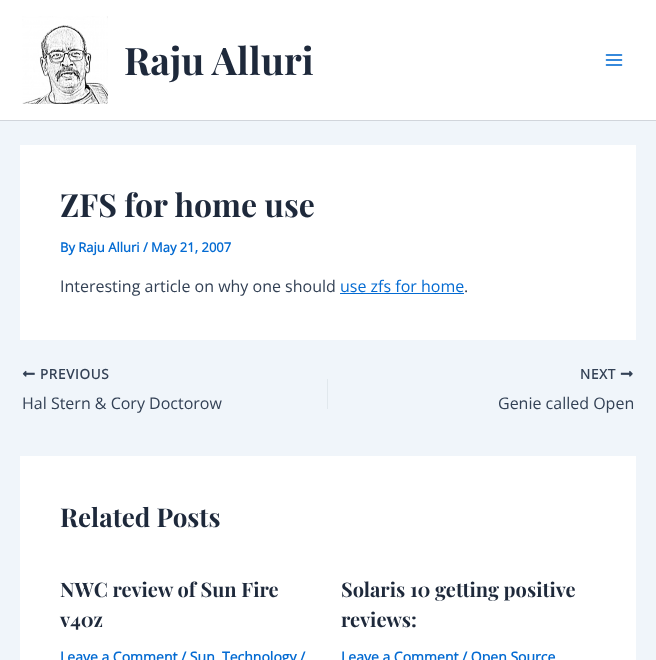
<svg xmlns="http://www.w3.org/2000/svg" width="656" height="660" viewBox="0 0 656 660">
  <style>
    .t1 { font: bold 38px Playfair Display; fill: #1e293b; }
    .t2 { font: bold 32px Playfair Display; fill: #1e293b; }
    .t3 { font: bold 13px Open Sans; fill: #046bd2; }
    .t4 { font: 16px Open Sans; fill: #334155; }
    .t5 { font: 16px Open Sans; fill: #046bd2; }
    .t6 { font: bold 13.5px Open Sans; letter-spacing: 0.75px; fill: #334155; }
    .t7 { font: bold 26px Playfair Display; fill: #1e293b; }
    .t8 { font: bold 20px Playfair Display; fill: #1e293b; }
    .t9 { font: bold 14px Open Sans; fill: #046bd2; }
  </style>
  <rect width="100%" height="100%" fill="#f0f5fa"/>
  <rect x="0" y="0" width="656" height="120" fill="#fff"/>
  <rect x="0" y="120" width="656" height="1" fill="#d1d5db"/>
  <image x="22" y="16" width="86" height="88" href="images/1.png"/>
  <text x="124" y="75" class="t1">Raju Alluri</text>
  <image x="605" y="54" width="18" height="12" href="images/2.png"/>
  <rect x="20" y="145" width="616" height="195" fill="#fff"/>
  <text x="60" y="217" class="t2">ZFS for home use</text>
  <text x="60" y="252" class="t3">By Raju Alluri / May 21, 2007</text>
  <text x="60" y="292" class="t4">Interesting article on why one should</text>
  <text x="340" y="292" class="t5">use zfs for home</text>
  <rect x="340" y="293" width="124" height="1" fill="#046bd2"/>
  <text x="464" y="292" class="t4">.</text>
  <image x="22" y="370" width="13" height="7" href="images/3.png"/>
  <text x="40" y="379" class="t6">PREVIOUS</text>
  <text x="22" y="409" class="t4">Hal Stern &amp; Cory Doctorow</text>
  <rect x="327" y="379" width="1" height="30" fill="#e1e8ed"/>
  <text x="580" y="379" class="t6">NEXT</text>
  <image x="620" y="370" width="13" height="7" href="images/4.png"/>
  <text x="498" y="409" class="t4">Genie called Open</text>
  <rect x="20" y="456" width="616" height="204" fill="#fff"/>
  <text x="60" y="527" class="t7">Related Posts</text>
  <text x="60" y="597" class="t8">NWC review of Sun Fire</text>
  <text x="60" y="627" class="t8">v40z</text>
  <text x="60" y="662" class="t9">Leave a Comment / Sun</text>
  <text x="222" y="662" class="t9">Technology /</text>
  <text x="341" y="597" class="t8">Solaris 10 getting positive</text>
  <text x="341" y="627" class="t8">reviews:</text>
  <text x="341" y="662" class="t9">Leave a Comment / Open Source</text>
</svg>
